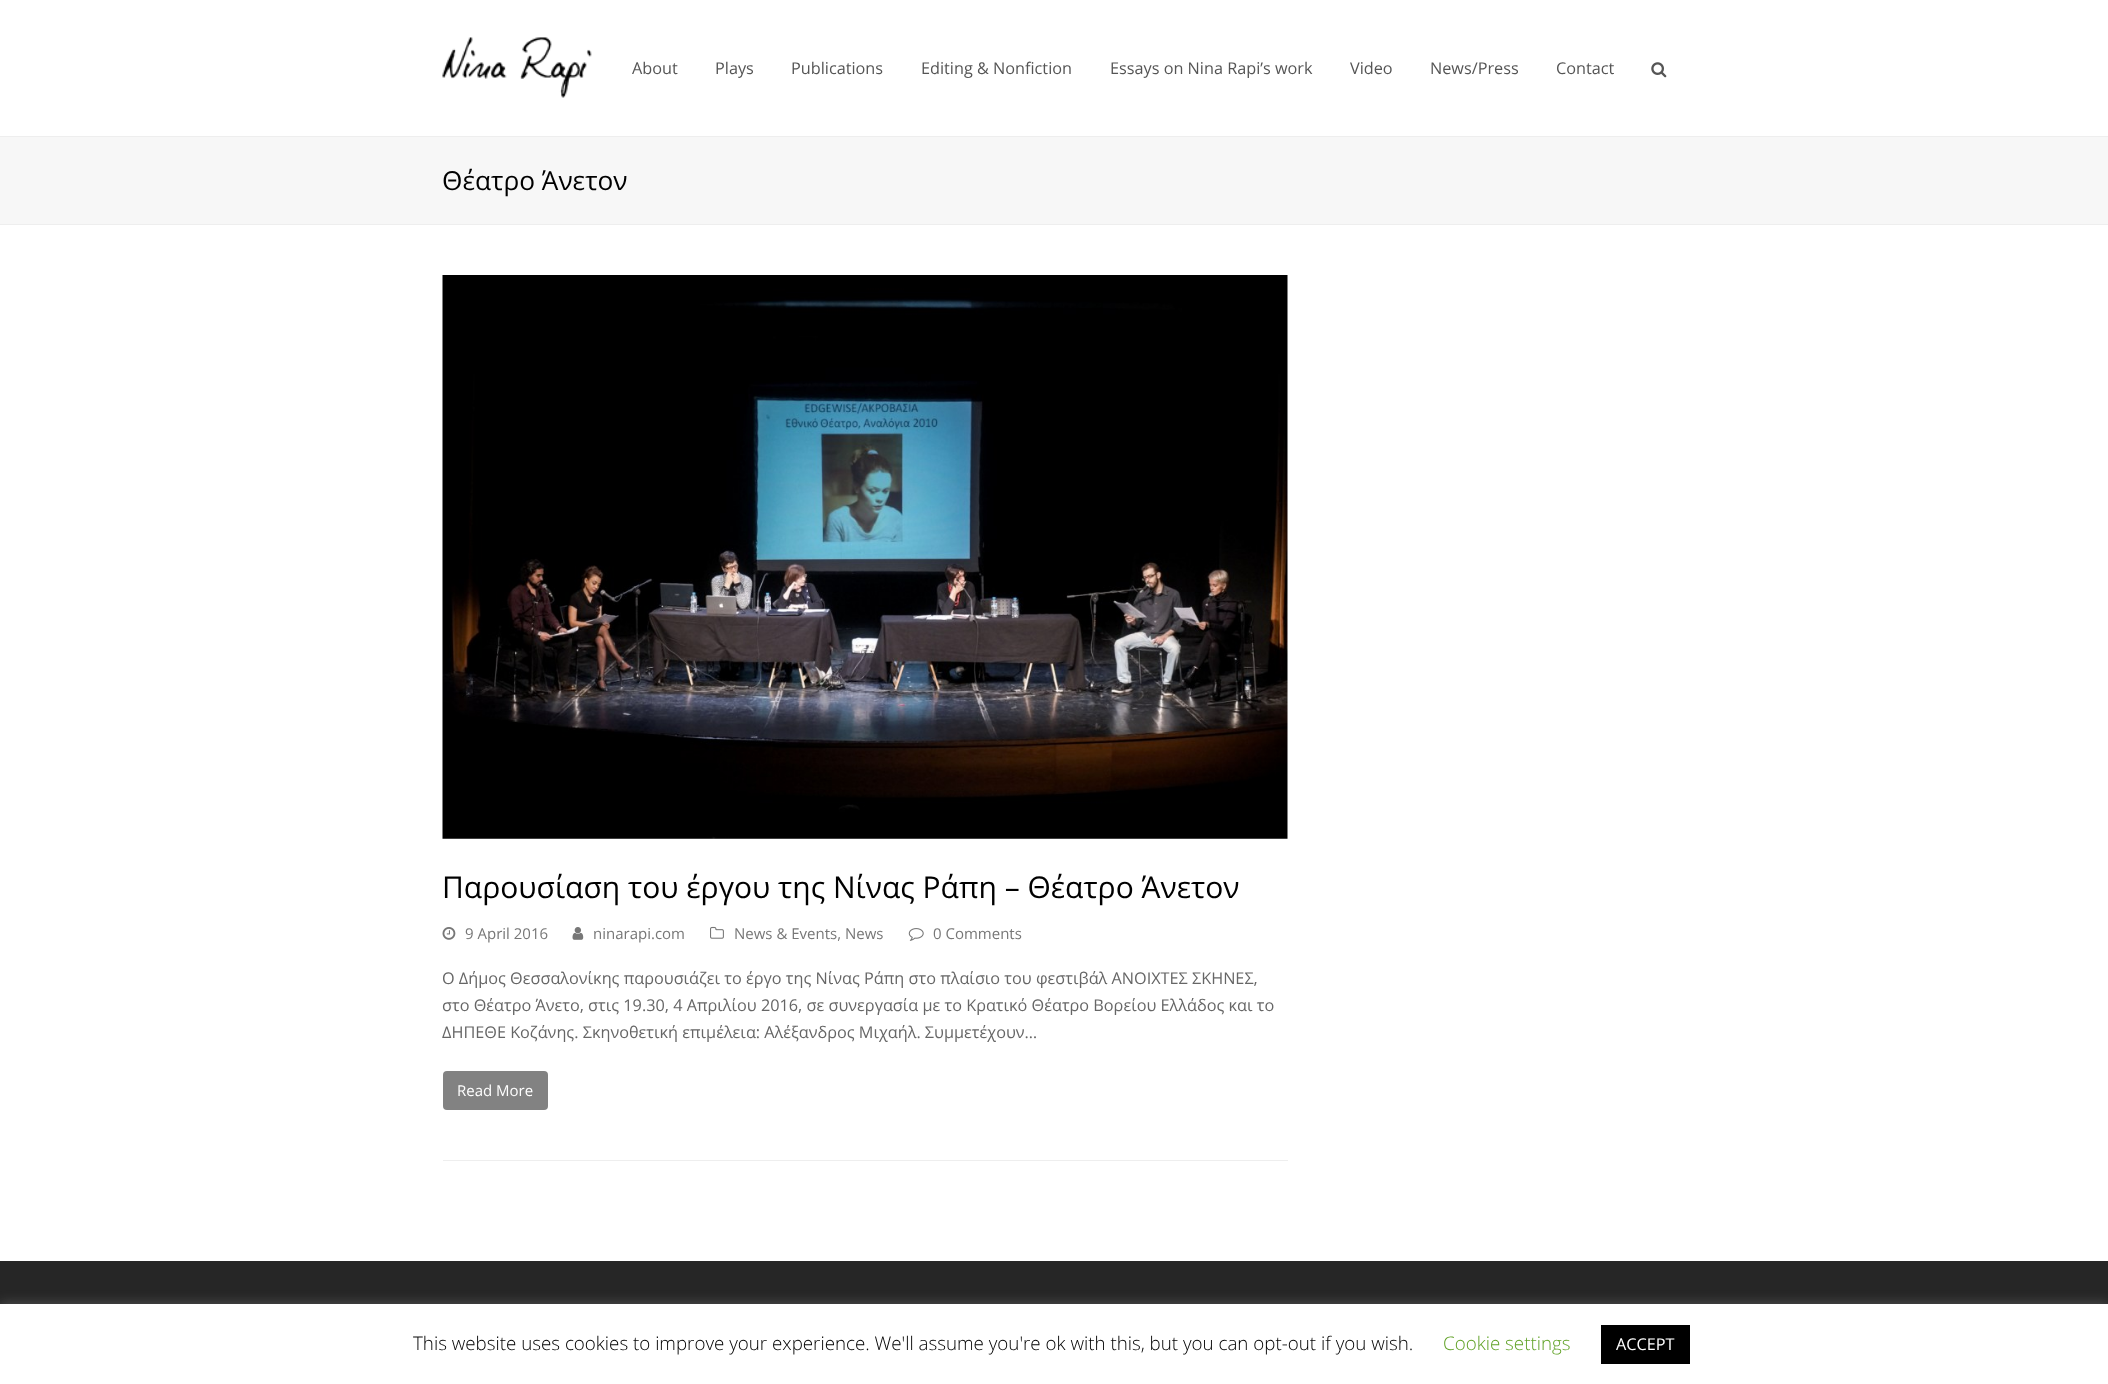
<svg xmlns="http://www.w3.org/2000/svg" width="2108" height="1384" viewBox="0 0 2108 1384">
  <style>
    .t1 { font: 16.25px Open Sans; fill: #555; }
    .t2 { font: 26.25px Open Sans; fill: #000; }
    .t3 { font: 30px Open Sans; fill: #000; }
    .t4 { font: 15px Open Sans; fill: #777; }
    .t5 { font: 16.25px Open Sans; fill: #666; }
    .t6 { font: 15px Open Sans; fill: #fff; }
    .t7 { font: 300 18.75px Open Sans; fill: #000; }
    .t8 { font: 300 18.75px Open Sans; fill: #62a329; }
    .t9 { font: 16.25px Open Sans; fill: #fff; }
  </style>
  <rect width="100%" height="100%" fill="#fff"/>
  <image x="442" y="37" width="150" height="61" href="images/1.png"/>
  <text x="632" y="74" class="t1">About</text>
  <text x="715" y="74" class="t1">Plays</text>
  <text x="791" y="74" class="t1">Publications</text>
  <text x="921" y="74" class="t1">Editing &amp; Nonfiction</text>
  <text x="1110" y="74" class="t1">Essays on Nina Rapi’s work</text>
  <text x="1350" y="74" class="t1">Video</text>
  <text x="1430" y="74" class="t1">News/Press</text>
  <text x="1556" y="74" class="t1">Contact</text>
  <image x="1651" y="62" width="16" height="16" href="images/2.png"/>
  <rect x="0" y="137" width="2108" height="87" fill="#f7f7f7"/>
  <rect x="0" y="136" width="2108" height="1" fill="#eee"/>
  <rect x="0" y="224" width="2108" height="1" fill="#eee"/>
  <text x="442" y="190" class="t2">Θέατρο Άνετον</text>
  <rect x="443" y="1160" width="845" height="1" fill="#eee"/>
  <image x="442" y="275" width="846" height="564" href="images/3.png"/>
  <text x="442" y="898" class="t3">Παρουσίαση του έργου της Νίνας Ράπη – Θέατρο Άνετον</text>
  <image x="442" y="927" width="14" height="13" href="images/4.png"/>
  <text x="465" y="939" class="t4">9 April 2016</text>
  <image x="572" y="927" width="12" height="13" href="images/5.png"/>
  <text x="593" y="939" class="t4">ninarapi.com</text>
  <image x="710" y="926" width="14" height="13" href="images/6.png"/>
  <text x="734" y="939" class="t4">News &amp; Events, News</text>
  <image x="908" y="928" width="16" height="13" href="images/7.png"/>
  <text x="933" y="939" class="t4">0 Comments</text>
  <text x="442" y="984" class="t5">Ο Δήμος Θεσσαλονίκης παρουσιάζει το έργο της Νίνας Ράπη στο πλαίσιο του φεστιβάλ ΑΝΟΙΧΤΕΣ ΣΚΗΝΕΣ,</text>
  <text x="442" y="1011" class="t5">στο Θέατρο Άνετο, στις 19.30, 4 Απριλίου 2016, σε συνεργασία με το Κρατικό Θέατρο Βορείου Ελλάδος και το</text>
  <text x="442" y="1038" class="t5">ΔΗΠΕΘΕ Κοζάνης. Σκηνοθετική επιμέλεια: Αλέξανδρος Μιχαήλ. Συμμετέχουν…</text>
  <rect x="443" y="1071" width="105" height="39" rx="4" fill="#828282"/>
  <text x="457" y="1096" class="t6">Read More</text>
  <rect x="0" y="1261" width="2108" height="43" fill="#262626"/>
  <rect x="0" y="1303" width="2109" height="81" fill="#acabab4d" filter="blur(6px)"/>
  <rect x="0" y="1304" width="2108" height="80" fill="#fff"/>
  <text x="413" y="1350" class="t7">This website uses cookies to improve your experience. We'll assume you're ok with this, but you can opt-out if you wish.</text>
  <text x="1443" y="1350" class="t8">Cookie settings</text>
  <rect x="1601" y="1325" width="89" height="39" fill="#000"/>
  <text x="1616" y="1350" class="t9">ACCEPT</text>
</svg>
